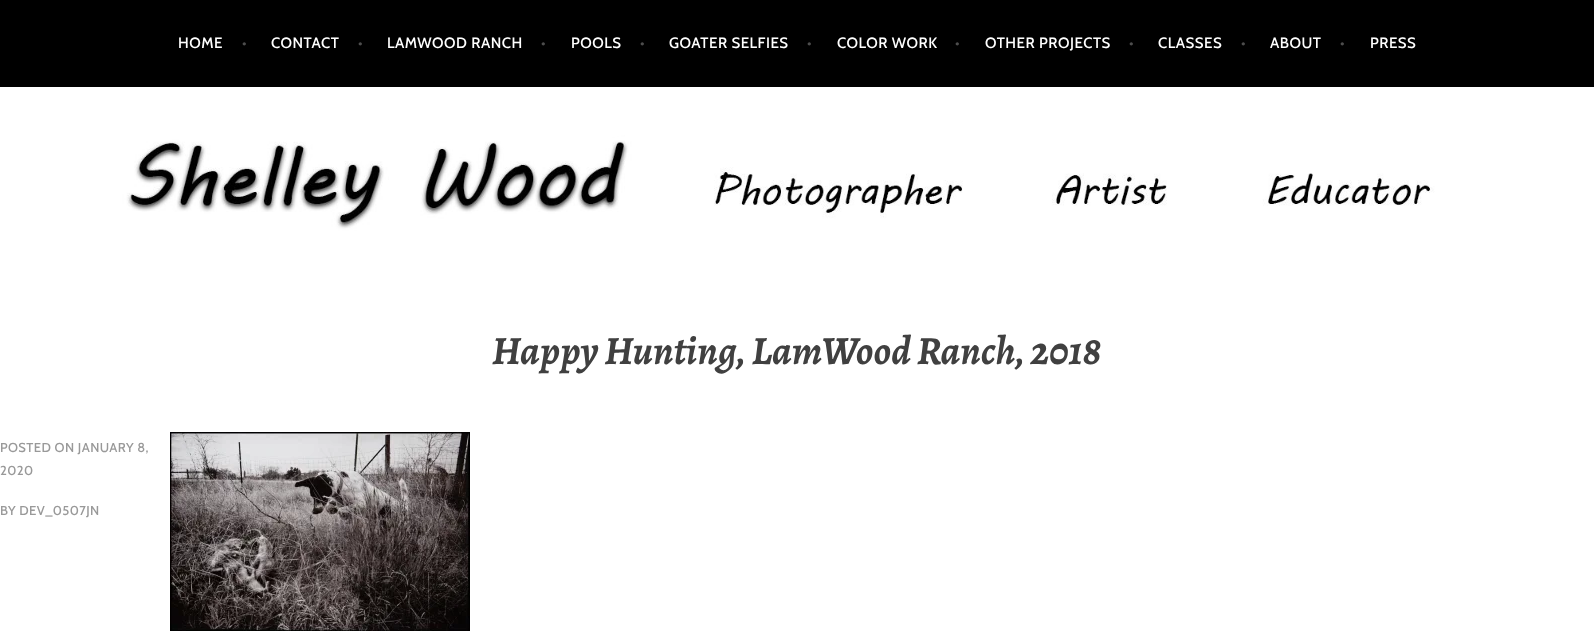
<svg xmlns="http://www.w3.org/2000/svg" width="1594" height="631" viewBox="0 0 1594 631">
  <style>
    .t1 { font: 500 15px Cabin; letter-spacing: 0.5px; fill: #fff; }
    .t2 { font: 500 15px Cabin; letter-spacing: 0.5px; fill: #4d4d4d; }
    .t3 { font: italic bold 40px Alegreya; fill: #404040; }
    .t4 { font: 500 13px Cabin; letter-spacing: 0.4px; fill: #999; }
  </style>
  <rect width="100%" height="100%" fill="#fff"/>
  <rect x="0" y="0" width="1594" height="87" fill="#000"/>
  <text x="178" y="48" class="t1">HOME</text>
  <text x="242" y="48" class="t2">•</text>
  <text x="271" y="48" class="t1">CONTACT</text>
  <text x="358" y="48" class="t2">•</text>
  <text x="387" y="48" class="t1">LAMWOOD RANCH</text>
  <text x="541" y="48" class="t2">•</text>
  <text x="571" y="48" class="t1">POOLS</text>
  <text x="640" y="48" class="t2">•</text>
  <text x="669" y="48" class="t1">GOATER SELFIES</text>
  <text x="807" y="48" class="t2">•</text>
  <text x="837" y="48" class="t1">COLOR WORK</text>
  <text x="955" y="48" class="t2">•</text>
  <text x="985" y="48" class="t1">OTHER PROJECTS</text>
  <text x="1129" y="48" class="t2">•</text>
  <text x="1158" y="48" class="t1">CLASSES</text>
  <text x="1241" y="48" class="t2">•</text>
  <text x="1270" y="48" class="t1">ABOUT</text>
  <text x="1340" y="48" class="t2">•</text>
  <text x="1370" y="48" class="t1">PRESS</text>
  <image x="0" y="87" width="1594" height="170" href="images/1.png"/>
  <text x="492" y="364" class="t3">Happy Hunting, LamWood Ranch, 2018</text>
  <text x="0" y="452" class="t4">POSTED ON JANUARY 8,</text>
  <text x="0" y="475" class="t4">2020</text>
  <text x="0" y="515" class="t4">BY DEV_0507JN</text>
  <image x="170" y="432" width="300" height="199" href="images/2.png"/>
</svg>
